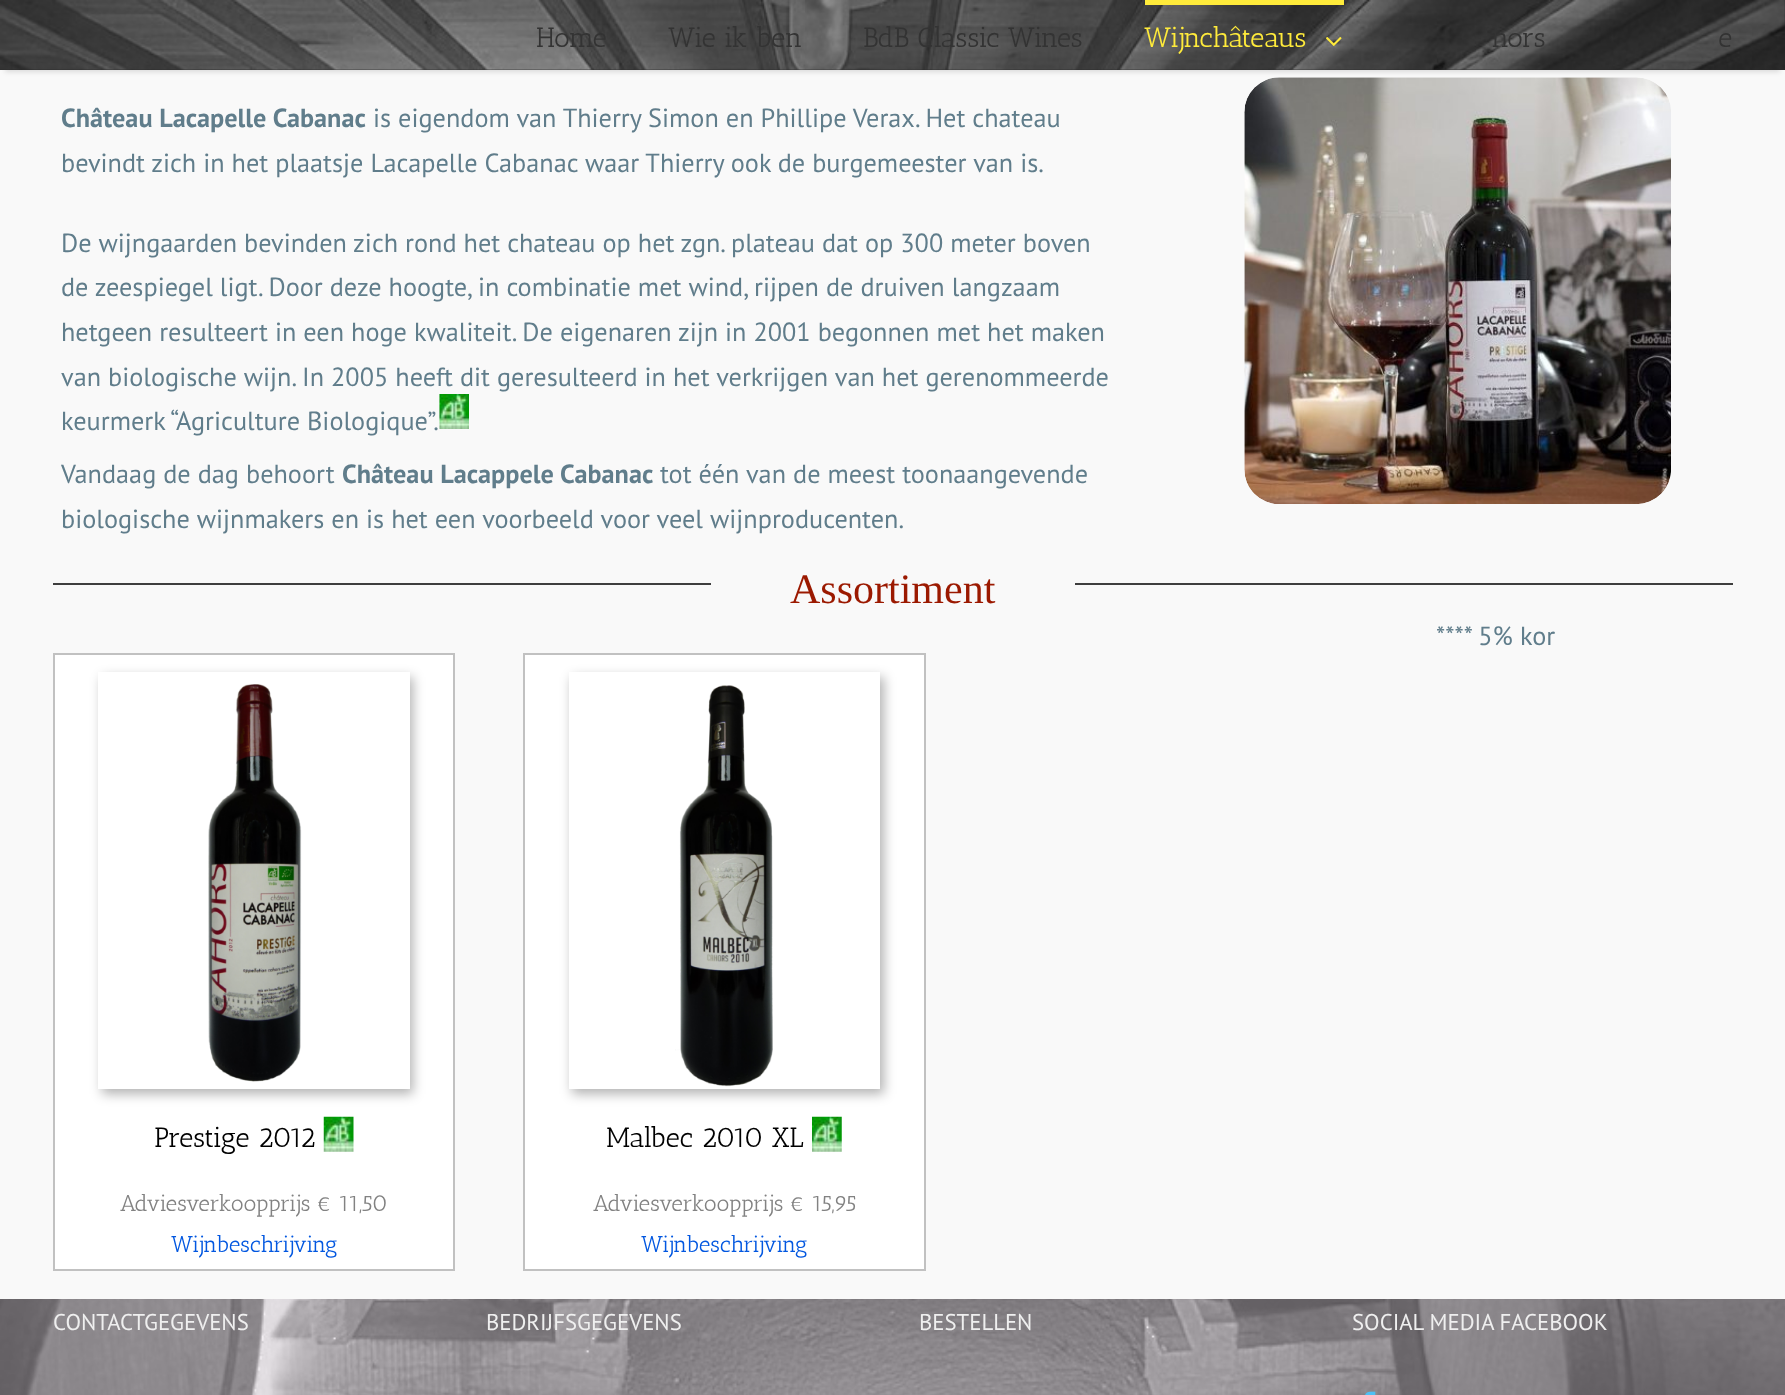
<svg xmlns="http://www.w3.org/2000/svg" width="1785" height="1395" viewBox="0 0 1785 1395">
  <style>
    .t1 { font: 28px Antic Slab; fill: #333; }
    .t2 { font: 28px Antic Slab; fill: #ffeb3b; }
    .t3 { font: bold 26.25px PT Sans; fill: #607d8b; }
    .t4 { font: 26.25px PT Sans; fill: #607d8b; }
    .t5 { font: 42px Liberation Serif; fill: #9b1900; }
    .t6 { font: 28px Antic Slab; fill: #000; }
    .t7 { font: 22.75px Antic Slab; fill: #828282; }
    .t8 { font: 22.75px Antic Slab; fill: #0257e0; }
    .t9 { font: 22.75px PT Sans; fill: #efefef; }
  </style>
  <defs>
    <clipPath id="clip1"><path d="M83 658H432V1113H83ZM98 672H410V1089H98Z" clip-rule="evenodd"/></clipPath>
    <clipPath id="clip2"><path d="M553 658H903V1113H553ZM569 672H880V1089H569Z" clip-rule="evenodd"/></clipPath>
  </defs>
  <rect width="100%" height="100%" fill="#fff"/>
  <rect x="0" y="70" width="1785" height="1229" fill="#f9f9f9"/>
  <image x="1244" y="77" width="427" height="427" href="images/3.png"/>
  <rect x="5" y="12" width="1775" height="60" fill="#0000001f" filter="blur(2.5px)"/>
  <rect x="0" y="0" width="1785" height="70" fill="#29292a"/>
  <image x="0" y="0" width="1785" height="70" href="images/1.png"/>
  <text x="536" y="47" class="t1">Home</text>
  <text x="668" y="47" class="t1">Wie ik ben</text>
  <text x="863" y="47" class="t1">BdB Classic Wines</text>
  <rect x="1145" y="0" width="199" height="5" fill="#ffeb3b"/>
  <text x="1144" y="47" class="t2">Wijnchâteaus</text>
  <image x="1326" y="37" width="16" height="9" href="images/2.png"/>
  <text x="1491" y="47" class="t1">hors</text>
  <text x="1718" y="47" class="t1">e</text>
  <text x="61" y="127" class="t3">Château Lacapelle Cabanac</text>
  <text x="373" y="127" class="t4">is eigendom van Thierry Simon en Phillipe Verax. Het chateau</text>
  <text x="61" y="172" class="t4">bevindt zich in het plaatsje Lacapelle Cabanac waar Thierry ook de burgemeester van is.</text>
  <text x="61" y="252" class="t4">De wijngaarden bevinden zich rond het chateau op het zgn. plateau dat op 300 meter boven</text>
  <text x="61" y="296" class="t4">de zeespiegel ligt. Door deze hoogte, in combinatie met wind, rijpen de druiven langzaam</text>
  <text x="61" y="341" class="t4">hetgeen resulteert in een hoge kwaliteit. De eigenaren zijn in 2001 begonnen met het maken</text>
  <text x="61" y="386" class="t4">van biologische wijn. In 2005 heeft dit geresulteerd in het verkrijgen van het gerenommeerde</text>
  <text x="61" y="430" class="t4">keurmerk “Agriculture Biologique”.</text>
  <image x="439" y="394" width="30" height="35" href="images/4.png"/>
  <text x="61" y="483" class="t4">Vandaag de dag behoort</text>
  <text x="342" y="483" class="t3">Château Lacappele Cabanac</text>
  <text x="660" y="483" class="t4">tot één van de meest toonaangevende</text>
  <text x="61" y="528" class="t4">biologische wijnmakers en is het een voorbeeld voor veel wijnproducenten.</text>
  <rect x="53" y="583" width="658" height="2" fill="#3e3e3e"/>
  <text x="790" y="603" class="t5">Assortiment</text>
  <rect x="1075" y="583" width="658" height="2" fill="#3e3e3e"/>
  <text x="1436" y="645" class="t4">**** 5% kor</text>
  <rect x="54" y="654" width="400" height="616" fill="#fff" stroke="#c1c1c1" stroke-width="2"/>
  <g clip-path="url(#clip1)">
    <rect x="102" y="677" width="311" height="417" fill="#0000004d" filter="blur(6px)"/>
  </g>
  <image x="208" y="684" width="94" height="398" href="images/5.png"/>
  <text x="154" y="1147" class="t6">Prestige 2012</text>
  <image x="323" y="1116" width="31" height="36" href="images/6.png"/>
  <text x="120" y="1211" class="t7">Adviesverkoopprijs € 11,50</text>
  <text x="171" y="1252" class="t8">Wijnbeschrijving</text>
  <rect x="524" y="654" width="401" height="616" fill="#fff" stroke="#c1c1c1" stroke-width="2"/>
  <g clip-path="url(#clip2)">
    <rect x="572" y="677" width="312" height="417" fill="#0000004d" filter="blur(6px)"/>
  </g>
  <image x="675" y="685" width="98" height="402" href="images/7.png"/>
  <text x="606" y="1147" class="t6">Malbec 2010 XL</text>
  <image x="812" y="1116" width="30" height="36" href="images/8.png"/>
  <text x="593" y="1211" class="t7">Adviesverkoopprijs € 15,95</text>
  <text x="641" y="1252" class="t8">Wijnbeschrijving</text>
  <image x="0" y="1299" width="1785" height="96" href="images/10.png"/>
  <rect x="0" y="1299" width="1785" height="96" fill="#e5dae561"/>
  <text x="53" y="1330" class="t9">CONTACTGEGEVENS</text>
  <text x="486" y="1330" class="t9">BEDRIJFSGEGEVENS</text>
  <text x="919" y="1330" class="t9">BESTELLEN</text>
  <text x="1352" y="1330" class="t9">SOCIAL MEDIA FACEBOOK</text>
  <image x="1365" y="1391" width="11" height="4" href="images/9.png"/>
</svg>
